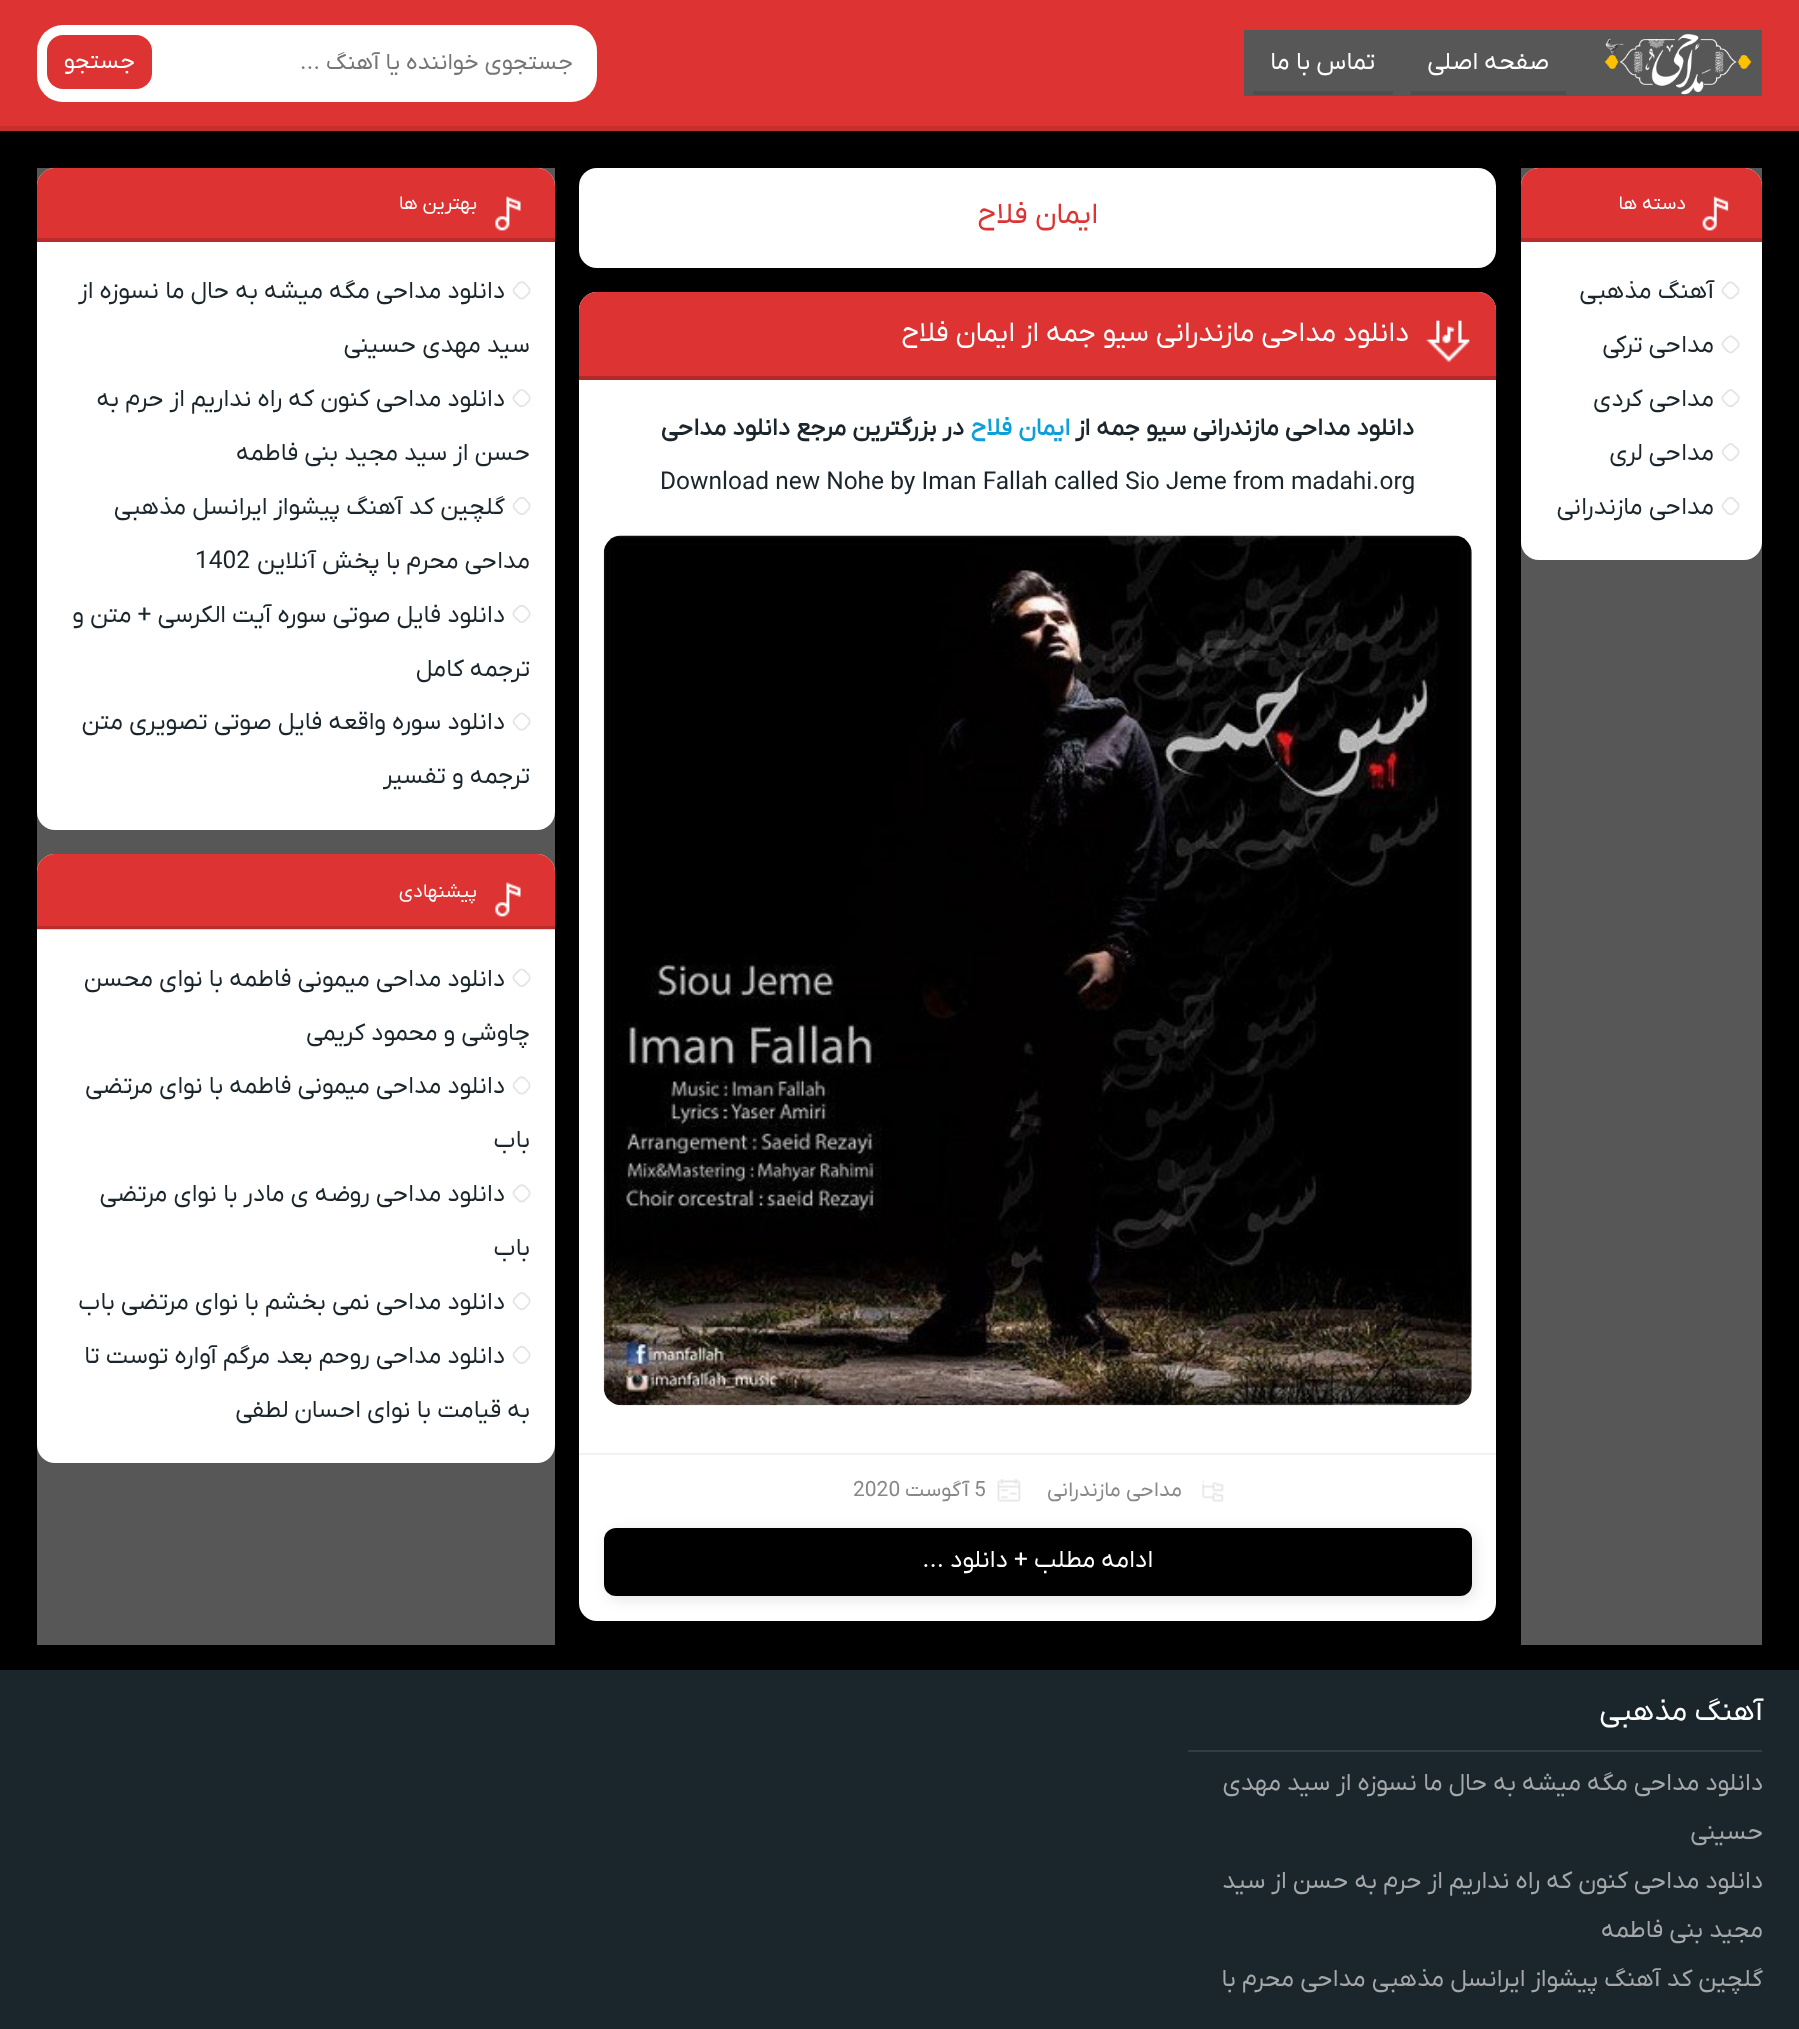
<svg xmlns="http://www.w3.org/2000/svg" width="1799" height="2029" viewBox="0 0 1799 2029">
  <style>
    .t1 { font: 24.5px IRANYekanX; direction: rtl; fill: #fff; }
    .t2 { font: 23.25px IRANYekanX; direction: rtl; fill: #757575; }
    .t3 { font: 23.25px IRANYekanX; direction: rtl; fill: #fff; }
    .t4 { font: 19.25px IRANYekanX; direction: rtl; fill: #fff; }
    .t5 { font: 24.5px IRANYekanX; direction: rtl; fill: #1b262c; }
    .t6 { font: 29.75px IRANYekanX; direction: rtl; fill: #d33; }
    .t7 { font: 28px IRANYekanX; direction: rtl; fill: #fff; }
    .t8 { font: bold 24.5px IRANYekanX; direction: rtl; fill: #1b262c; }
    .t9 { font: bold 24.5px IRANYekanX; direction: rtl; fill: #0d9fd8; }
    .t10 { font: 24.5px IRANYekanX; fill: #1b262c; }
    .t11 { font: 21px IRANYekanX; direction: rtl; fill: #888; }
    .t12 { font: 21px IRANYekanX; fill: #888; }
    .t13 { font: 29.75px IRANYekanX; direction: rtl; fill: #fff; }
    .t14 { font: 24.5px IRANYekanX; direction: rtl; fill: #a4a8ab; }
  </style>
  <rect width="100%" height="100%" fill="#000"/>
  <rect x="0" y="0" width="1799" height="126" fill="#d33"/>
  <rect x="0" y="126" width="1799" height="5" fill="#c72e2e"/>
  <rect x="1244" y="30" width="518" height="66" fill="#585757"/>
  <image x="1604" y="34" width="148" height="61" href="images/1.png"/>
  <text x="1549" y="69" class="t1">صفحه اصلی</text>
  <rect x="1411" y="91" width="155" height="4" fill="#4f4e4e"/>
  <text x="1375" y="69" class="t1">تماس با ما</text>
  <rect x="1253" y="91" width="140" height="4" fill="#4f4e4e"/>
  <rect x="37" y="25" width="560" height="77" rx="26" fill="#fff"/>
  <text x="573" y="69" class="t2">جستجوی خواننده یا آهنگ ...</text>
  <rect x="47" y="35" width="105" height="54" rx="16" fill="#d33"/>
  <text x="135" y="68" class="t3">جستجو</text>
  <rect x="1521" y="168" width="241" height="1477" fill="#585757"/>
  <rect x="1521" y="168" width="241" height="392" rx="18" fill="#fff"/>
  <path d="M1539 168H1744C1754 168 1762 176 1762 186V242H1521V186C1521 176 1529 168 1539 168Z" fill="#d33"/>
  <rect x="1521" y="238" width="241" height="4" fill="#bc2b2b"/>
  <image x="1702" y="196" width="27" height="35" href="images/2.png"/>
  <text x="1686" y="209" class="t4">دسته ها</text>
  <path d="M1733.5 283.5L1737.5 287.5C1739 289 1739 292 1737.5 293.5L1733.5 297C1732 299 1729.5 299 1727.5 297L1724 293.5C1722 292 1722 289 1724 287.5L1727.5 283.5C1729.5 282 1732 282 1733.5 283.5Z" fill="none" stroke="#e5e5e5" stroke-width="1.8"/>
  <text x="1714" y="298" class="t5">آهنگ مذهبی</text>
  <path d="M1733.5 337.5L1737.5 341C1739 343 1739 345.5 1737.5 347.5L1733.5 351C1732 353 1729.5 353 1727.5 351L1724 347.5C1722 345.5 1722 343 1724 341L1727.5 337.5C1729.5 336 1732 336 1733.5 337.5Z" fill="none" stroke="#e5e5e5" stroke-width="1.8"/>
  <text x="1714" y="352" class="t5">مداحی ترکی</text>
  <path d="M1733.5 391.5L1737.5 395C1739 397 1739 399.5 1737.5 401.5L1733.5 405C1732 406.5 1729.5 406.5 1727.5 405L1724 401.5C1722 399.5 1722 397 1724 395L1727.5 391.5C1729.5 389.5 1732 389.5 1733.5 391.5Z" fill="none" stroke="#e5e5e5" stroke-width="1.8"/>
  <text x="1714" y="406" class="t5">مداحی کردی</text>
  <path d="M1733.5 445.5L1737.5 449C1739 450.5 1739 453.5 1737.5 455L1733.5 459C1732 460.5 1729.5 460.5 1727.5 459L1724 455C1722 453.5 1722 450.5 1724 449L1727.5 445.5C1729.5 443.5 1732 443.5 1733.5 445.5Z" fill="none" stroke="#e5e5e5" stroke-width="1.8"/>
  <text x="1714" y="460" class="t5">مداحی لری</text>
  <path d="M1733.5 499L1737.5 503C1739 504.5 1739 507.5 1737.5 509L1733.5 513C1732 514.5 1729.5 514.5 1727.5 513L1724 509C1722 507.5 1722 504.5 1724 503L1727.5 499C1729.5 497.5 1732 497.5 1733.5 499Z" fill="none" stroke="#e5e5e5" stroke-width="1.8"/>
  <text x="1714" y="514" class="t5">مداحی مازندرانی</text>
  <rect x="579" y="168" width="917" height="100" rx="18" fill="#fff"/>
  <text x="1098" y="223" class="t6">ایمان فلاح</text>
  <rect x="579" y="292" width="917" height="1329" rx="18" fill="#fff"/>
  <path d="M597 292H1478C1488 292 1496 300 1496 310V380H579V310C579 300 587 292 597 292Z" fill="#d33"/>
  <rect x="579" y="376" width="917" height="4" fill="#b12929"/>
  <image x="1426" y="320" width="44" height="43" href="images/3.png"/>
  <text x="1409" y="341" class="t7">دانلود مداحی مازندرانی سیو جمه از ایمان فلاح</text>
  <text x="1414" y="435" class="t8">دانلود مداحی مازندرانی سیو جمه از</text>
  <text x="1070" y="435" class="t9">ایمان فلاح</text>
  <text x="964" y="435" class="t8">در بزرگترین مرجع دانلود مداحی</text>
  <text x="660" y="489" class="t10">Download new Nohe by Iman Fallah called Sio Jeme from madahi.org</text>
  <image x="603" y="535" width="869" height="871" href="images/4.png"/>
  <rect x="579" y="1453" width="917" height="2" fill="#f2f2f2"/>
  <image x="1202" y="1480" width="22" height="22" href="images/5.png"/>
  <text x="1182" y="1496" class="t11">مداحی مازندرانی</text>
  <image x="997" y="1479" width="24" height="23" href="images/6.png"/>
  <text x="974" y="1496" class="t12">5</text>
  <text x="969" y="1496" class="t11">آگوست</text>
  <text x="853" y="1496" class="t12">2020</text>
  <rect x="607" y="1531" width="868" height="69" rx="12" fill="#0000001a" filter="blur(7px)"/>
  <rect x="604" y="1528" width="868" height="68" rx="12" fill="#000"/>
  <text x="1153" y="1567" class="t1">ادامه مطلب + دانلود ...</text>
  <rect x="37" y="168" width="518" height="1477" fill="#585757"/>
  <rect x="37" y="168" width="518" height="662" rx="18" fill="#fff"/>
  <path d="M55 168H537C547 168 555 176 555 186V242H37V186C37 176 45 168 55 168Z" fill="#d33"/>
  <rect x="37" y="238" width="518" height="4" fill="#bc2b2b"/>
  <image x="495" y="196" width="26" height="35" href="images/7.png"/>
  <text x="477" y="209" class="t4">بهترین ها</text>
  <path d="M525 283.5L528.5 287.5C530 289 530 292 528.5 293.5L525 297C523 299 520.5 299 518.5 297L515 293.5C513 292 513 289 515 287.5L518.5 283.5C520.5 282 523 282 525 283.5Z" fill="none" stroke="#e5e5e5" stroke-width="1.8"/>
  <text x="505" y="298" class="t5">دانلود مداحی مگه میشه به حال ما نسوزه از</text>
  <text x="530" y="352" class="t5">سید مهدی حسینی</text>
  <path d="M525 391.5L528.5 395C530 397 530 399.5 528.5 401.5L525 405C523 406.5 520.5 406.5 518.5 405L515 401.5C513 399.5 513 397 515 395L518.5 391.5C520.5 389.5 523 389.5 525 391.5Z" fill="none" stroke="#e5e5e5" stroke-width="1.8"/>
  <text x="505" y="406" class="t5">دانلود مداحی کنون که راه نداریم از حرم به</text>
  <text x="530" y="460" class="t5">حسن از سید مجید بنی فاطمه</text>
  <path d="M525 499L528.5 503C530 504.5 530 507.5 528.5 509L525 513C523 514.5 520.5 514.5 518.5 513L515 509C513 507.5 513 504.5 515 503L518.5 499C520.5 497.5 523 497.5 525 499Z" fill="none" stroke="#e5e5e5" stroke-width="1.8"/>
  <text x="505" y="514" class="t5">گلچین کد آهنگ پیشواز ایرانسل مذهبی</text>
  <text x="530" y="568" class="t5">مداحی محرم با پخش آنلاین</text>
  <text x="195" y="568" class="t10">1402</text>
  <path d="M525 607L528.5 610.5C530 612.5 530 615 528.5 617L525 620.5C523 622.5 520.5 622.5 518.5 620.5L515 617C513 615 513 612.5 515 610.5L518.5 607C520.5 605.5 523 605.5 525 607Z" fill="none" stroke="#e5e5e5" stroke-width="1.8"/>
  <text x="505" y="622" class="t5">دانلود فایل صوتی سوره آیت الکرسی + متن و</text>
  <text x="530" y="676" class="t5">ترجمه کامل</text>
  <path d="M525 715L528.5 718.5C530 720 530 723 528.5 724.5L525 728.5C523 730 520.5 730 518.5 728.5L515 724.5C513 723 513 720 515 718.5L518.5 715C520.5 713 523 713 525 715Z" fill="none" stroke="#e5e5e5" stroke-width="1.8"/>
  <text x="505" y="729" class="t5">دانلود سوره واقعه فایل صوتی تصویری متن</text>
  <text x="530" y="783" class="t5">ترجمه و تفسیر</text>
  <rect x="37" y="854" width="518" height="609" rx="18" fill="#fff"/>
  <rect x="37" y="929" width="518" height="1" fill="#d9d9d9"/>
  <path d="M55 854H537C547 854 555 862 555 872V929H37V872C37 862 45 854 55 854Z" fill="#d33"/>
  <rect x="37" y="926" width="518" height="3" fill="#bc2b2b"/>
  <image x="495" y="882" width="26" height="35" href="images/7.png"/>
  <text x="477" y="897" class="t4">پیشنهادی</text>
  <path d="M525 971L528.5 974.5C530 976.5 530 979 528.5 981L525 984.5C523 986.5 520.5 986.5 518.5 984.5L515 981C513 979 513 976.5 515 974.5L518.5 971C520.5 969 523 969 525 971Z" fill="none" stroke="#e5e5e5" stroke-width="1.8"/>
  <text x="505" y="986" class="t5">دانلود مداحی میمونی فاطمه با نوای محسن</text>
  <text x="530" y="1040" class="t5">چاوشی و محمود کریمی</text>
  <path d="M525 1078.5L528.5 1082.5C530 1084 530 1087 528.5 1088.5L525 1092.5C523 1094 520.5 1094 518.5 1092.5L515 1088.5C513 1087 513 1084 515 1082.5L518.5 1078.5C520.5 1077 523 1077 525 1078.5Z" fill="none" stroke="#e5e5e5" stroke-width="1.8"/>
  <text x="505" y="1093" class="t5">دانلود مداحی میمونی فاطمه با نوای مرتضی</text>
  <text x="530" y="1147" class="t5">باب</text>
  <path d="M525 1186.5L528.5 1190C530 1192 530 1194.5 528.5 1196.5L525 1200C523 1202 520.5 1202 518.5 1200L515 1196.5C513 1194.5 513 1192 515 1190L518.5 1186.5C520.5 1185 523 1185 525 1186.5Z" fill="none" stroke="#e5e5e5" stroke-width="1.8"/>
  <text x="505" y="1201" class="t5">دانلود مداحی روضه ی مادر با نوای مرتضی</text>
  <text x="530" y="1255" class="t5">باب</text>
  <path d="M525 1294.5L528.5 1298C530 1299.5 530 1302.5 528.5 1304L525 1308C523 1309.5 520.5 1309.5 518.5 1308L515 1304C513 1302.5 513 1299.5 515 1298L518.5 1294.5C520.5 1292.5 523 1292.5 525 1294.5Z" fill="none" stroke="#e5e5e5" stroke-width="1.8"/>
  <text x="505" y="1309" class="t5">دانلود مداحی نمی بخشم با نوای مرتضی باب</text>
  <path d="M525 1348L528.5 1352C530 1353.5 530 1356.5 528.5 1358L525 1362C523 1363.5 520.5 1363.5 518.5 1362L515 1358C513 1356.5 513 1353.5 515 1352L518.5 1348C520.5 1346.5 523 1346.5 525 1348Z" fill="none" stroke="#e5e5e5" stroke-width="1.8"/>
  <text x="505" y="1363" class="t5">دانلود مداحی روحم بعد مرگم آواره توست تا</text>
  <text x="530" y="1417" class="t5">به قیامت با نوای احسان لطفی</text>
  <rect x="0" y="1670" width="1799" height="359" fill="#1b262c"/>
  <rect x="1188" y="1750" width="574" height="2" fill="#323c41"/>
  <text x="1763" y="1720" class="t13">آهنگ مذهبی</text>
  <text x="1763" y="1790" class="t14">دانلود مداحی مگه میشه به حال ما نسوزه از سید مهدی</text>
  <text x="1763" y="1839" class="t14">حسینی</text>
  <text x="1763" y="1888" class="t14">دانلود مداحی کنون که راه نداریم از حرم به حسن از سید</text>
  <text x="1763" y="1937" class="t14">مجید بنی فاطمه</text>
  <text x="1763" y="1986" class="t14">گلچین کد آهنگ پیشواز ایرانسل مذهبی مداحی محرم با</text>
</svg>
